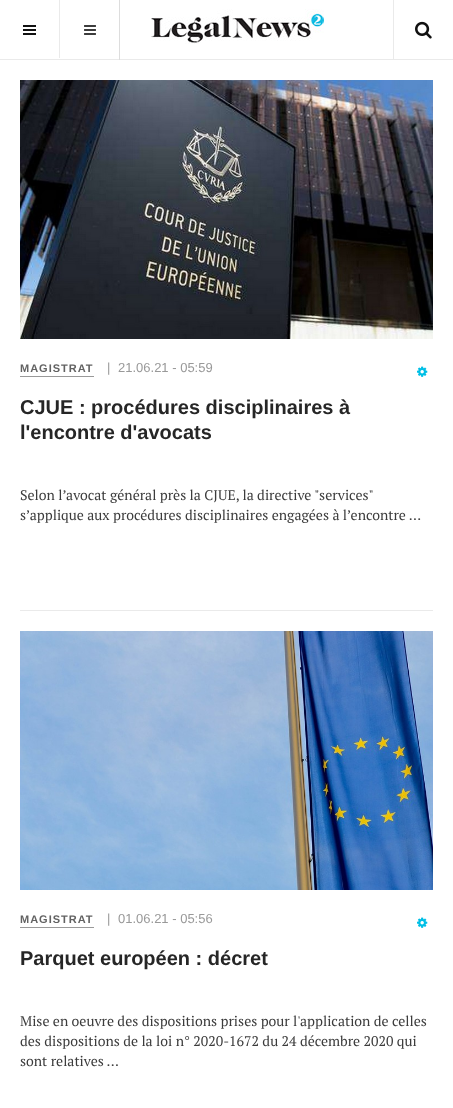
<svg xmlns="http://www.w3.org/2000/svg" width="453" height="1108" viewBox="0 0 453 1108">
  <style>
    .t1 { font: bold 11px Liberation Sans; letter-spacing: 1px; fill: #626262; }
    .t2 { font: 13px Liberation Sans; fill: #999; }
    .t3 { font: bold 20px Liberation Sans; fill: #262626; }
    .t4 { font: 14px PT Serif; fill: #3c3c3c; }
  </style>
  <rect width="100%" height="100%" fill="#fff"/>
  <rect x="0" y="59" width="453" height="1" fill="#eaeaea"/>
  <rect x="59" y="0" width="1" height="58" fill="#eaeaea"/>
  <rect x="23" y="29" width="13" height="2" fill="#111"/>
  <rect x="23" y="25" width="13" height="2" fill="#111"/>
  <rect x="23" y="33" width="13" height="2" fill="#111"/>
  <image x="151" y="9" width="173" height="35" href="images/1.png"/>
  <rect x="393" y="0" width="1" height="59" fill="#eaeaea"/>
  <image x="415" y="21" width="17" height="18" href="images/2.png"/>
  <rect x="119" y="0" width="1" height="60" fill="#ddd"/>
  <image x="84" y="25" width="12" height="10" href="images/3.png"/>
  <image x="20" y="80" width="413" height="259" href="images/4.png"/>
  <text x="20" y="372" class="t1">MAGISTRAT</text>
  <rect x="20" y="376" width="74" height="1" fill="#999"/>
  <text x="107" y="372" class="t2">|</text>
  <text x="118" y="372" class="t2">21.06.21 - 05:59</text>
  <image x="417" y="366" width="11" height="11" href="images/5.png"/>
  <text x="20" y="414" class="t3">CJUE : procédures disciplinaires à</text>
  <text x="20" y="439" class="t3">l'encontre d'avocats</text>
  <text x="20" y="500" class="t4">Selon l’avocat général près la CJUE, la directive "services"</text>
  <text x="20" y="520" class="t4">s’applique aux procédures disciplinaires engagées à l’encontre ...</text>
  <rect x="20" y="610" width="413" height="1" fill="#eaeaea"/>
  <image x="20" y="631" width="413" height="259" href="images/6.png"/>
  <text x="20" y="923" class="t1">MAGISTRAT</text>
  <rect x="20" y="927" width="74" height="1" fill="#999"/>
  <text x="107" y="923" class="t2">|</text>
  <text x="118" y="923" class="t2">01.06.21 - 05:56</text>
  <image x="417" y="917" width="11" height="11" href="images/5.png"/>
  <text x="20" y="965" class="t3">Parquet européen : décret</text>
  <text x="20" y="1026" class="t4">Mise en oeuvre des dispositions prises pour l'application de celles</text>
  <text x="20" y="1046" class="t4">des dispositions de la loi n° 2020-1672 du 24 décembre 2020 qui</text>
  <text x="20" y="1066" class="t4">sont relatives ...</text>
</svg>
